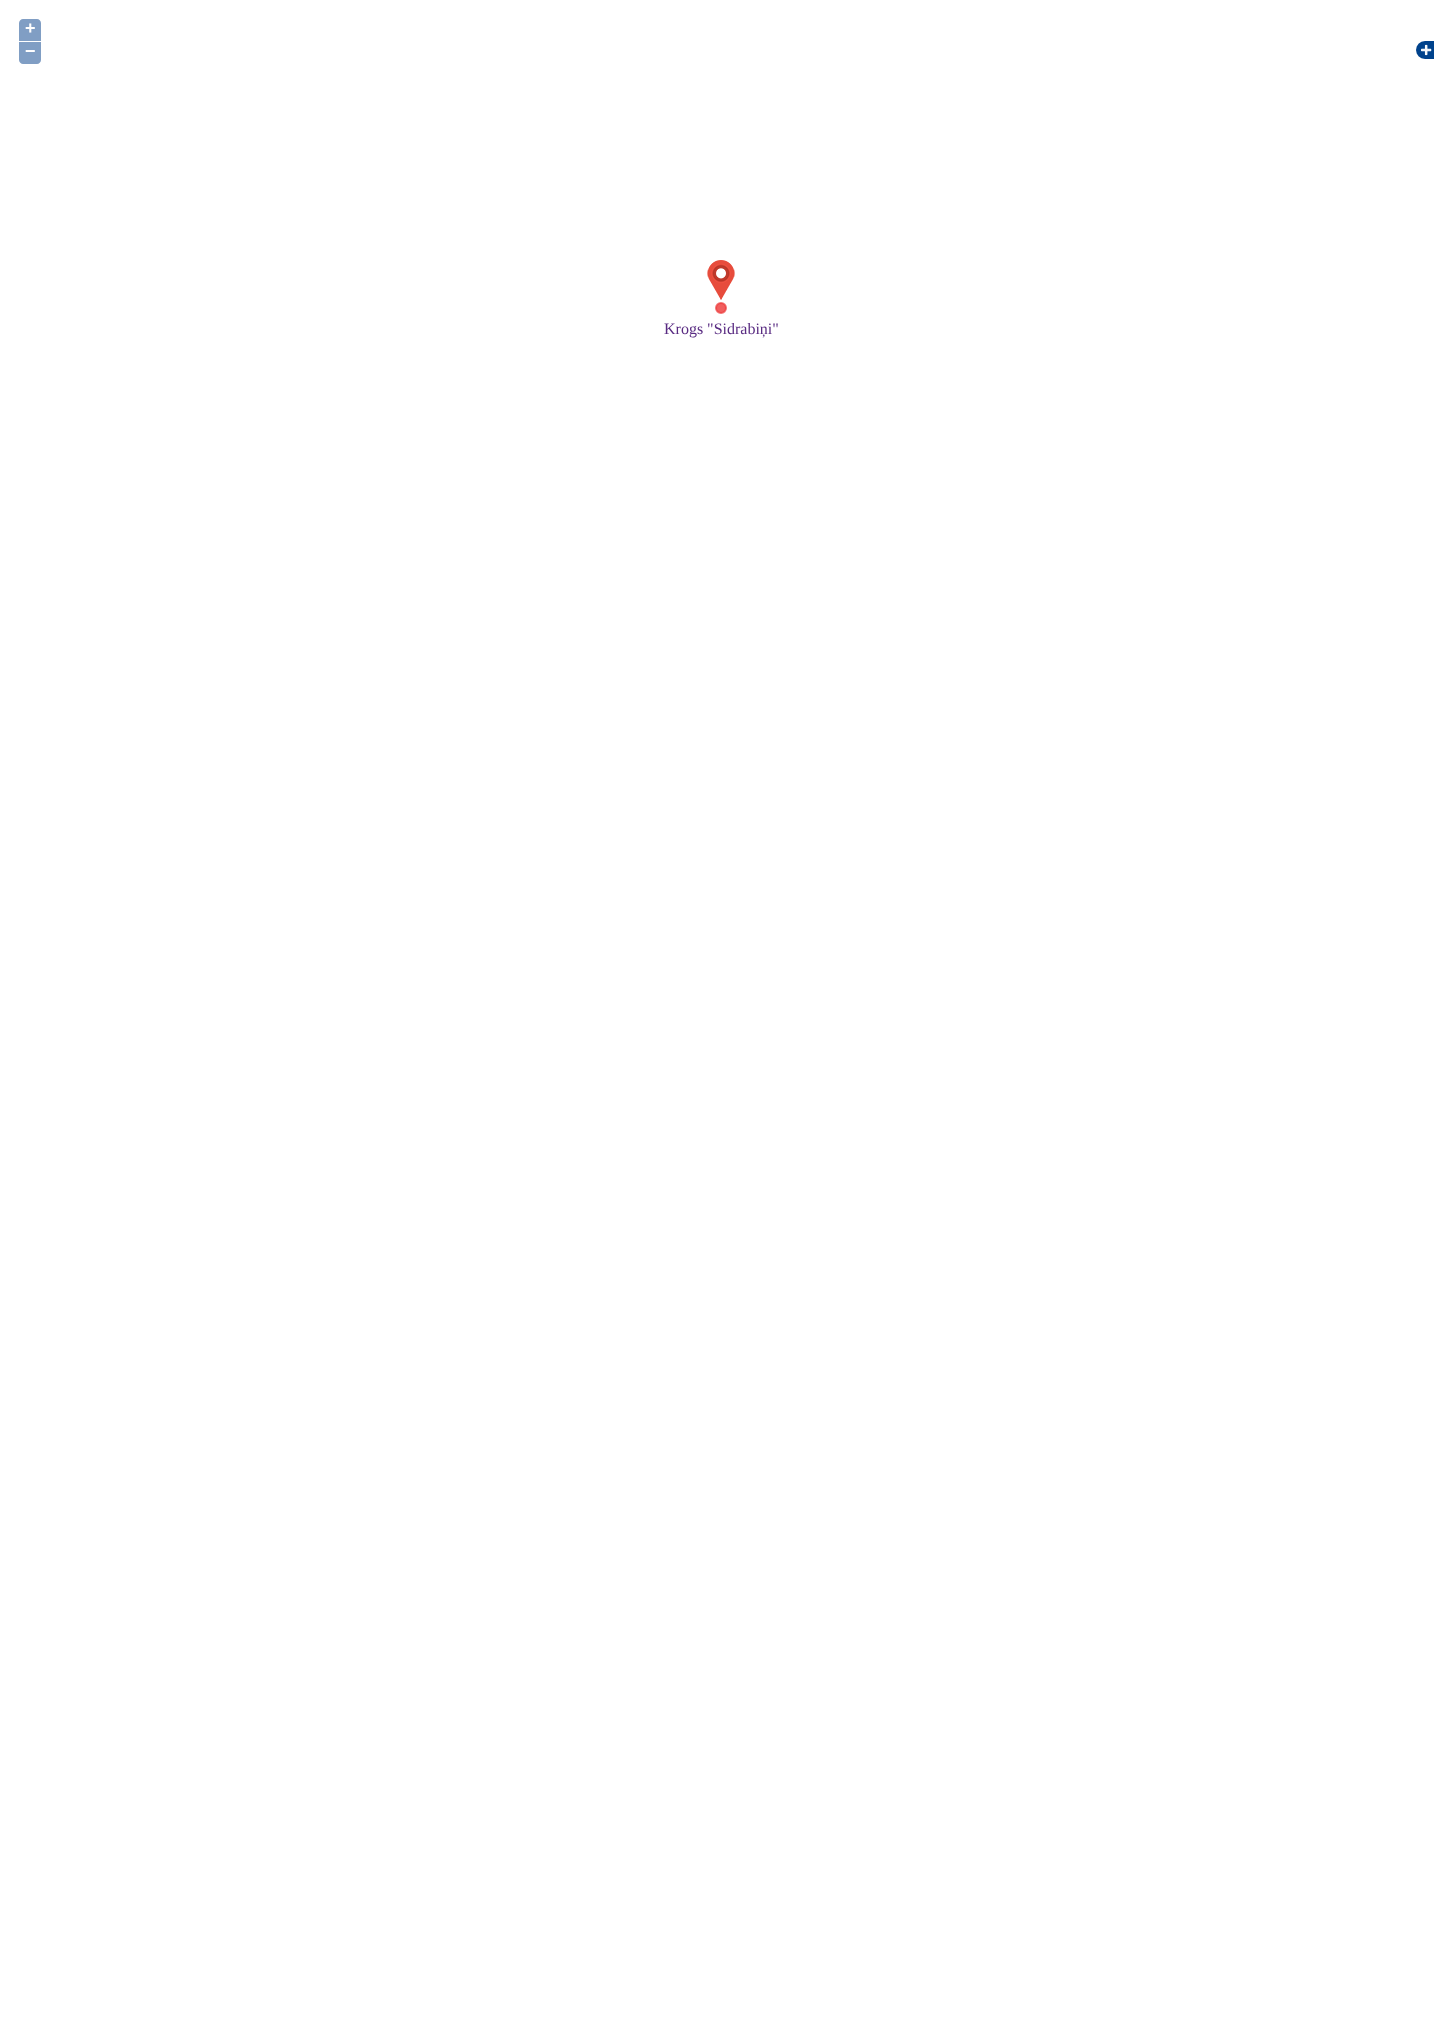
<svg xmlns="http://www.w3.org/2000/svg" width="1442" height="2020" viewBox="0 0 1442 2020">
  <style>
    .t1 { font: bold 18px Liberation Sans; fill: #fff; }
    .t2 { font: 16px Liberation Serif; fill: #592b82; }
  </style>
  <rect width="100%" height="100%" fill="#fff"/>
  <path d="M23 19H37C39 19 41 21 41 23V41H19V23C19 21 21 19 23 19Z" fill="#809ec4"/>
  <text x="25" y="34" class="t1">+</text>
  <path d="M19 42H41V60C41 62 39 64 37 64H23C21 64 19 62 19 60Z" fill="#809ec4"/>
  <text x="25" y="57" class="t1">−</text>
  <image x="1416" y="41" width="18" height="18" href="images/1.png"/>
  <image x="707" y="260" width="28" height="40" href="images/2.png"/>
  <circle cx="721" cy="308" r="5" fill="#f15f5f" stroke="#ed3737b3" stroke-width="2"/>
  <text x="664" y="334" class="t2">Krogs "Sidrabiņi"</text>
</svg>
